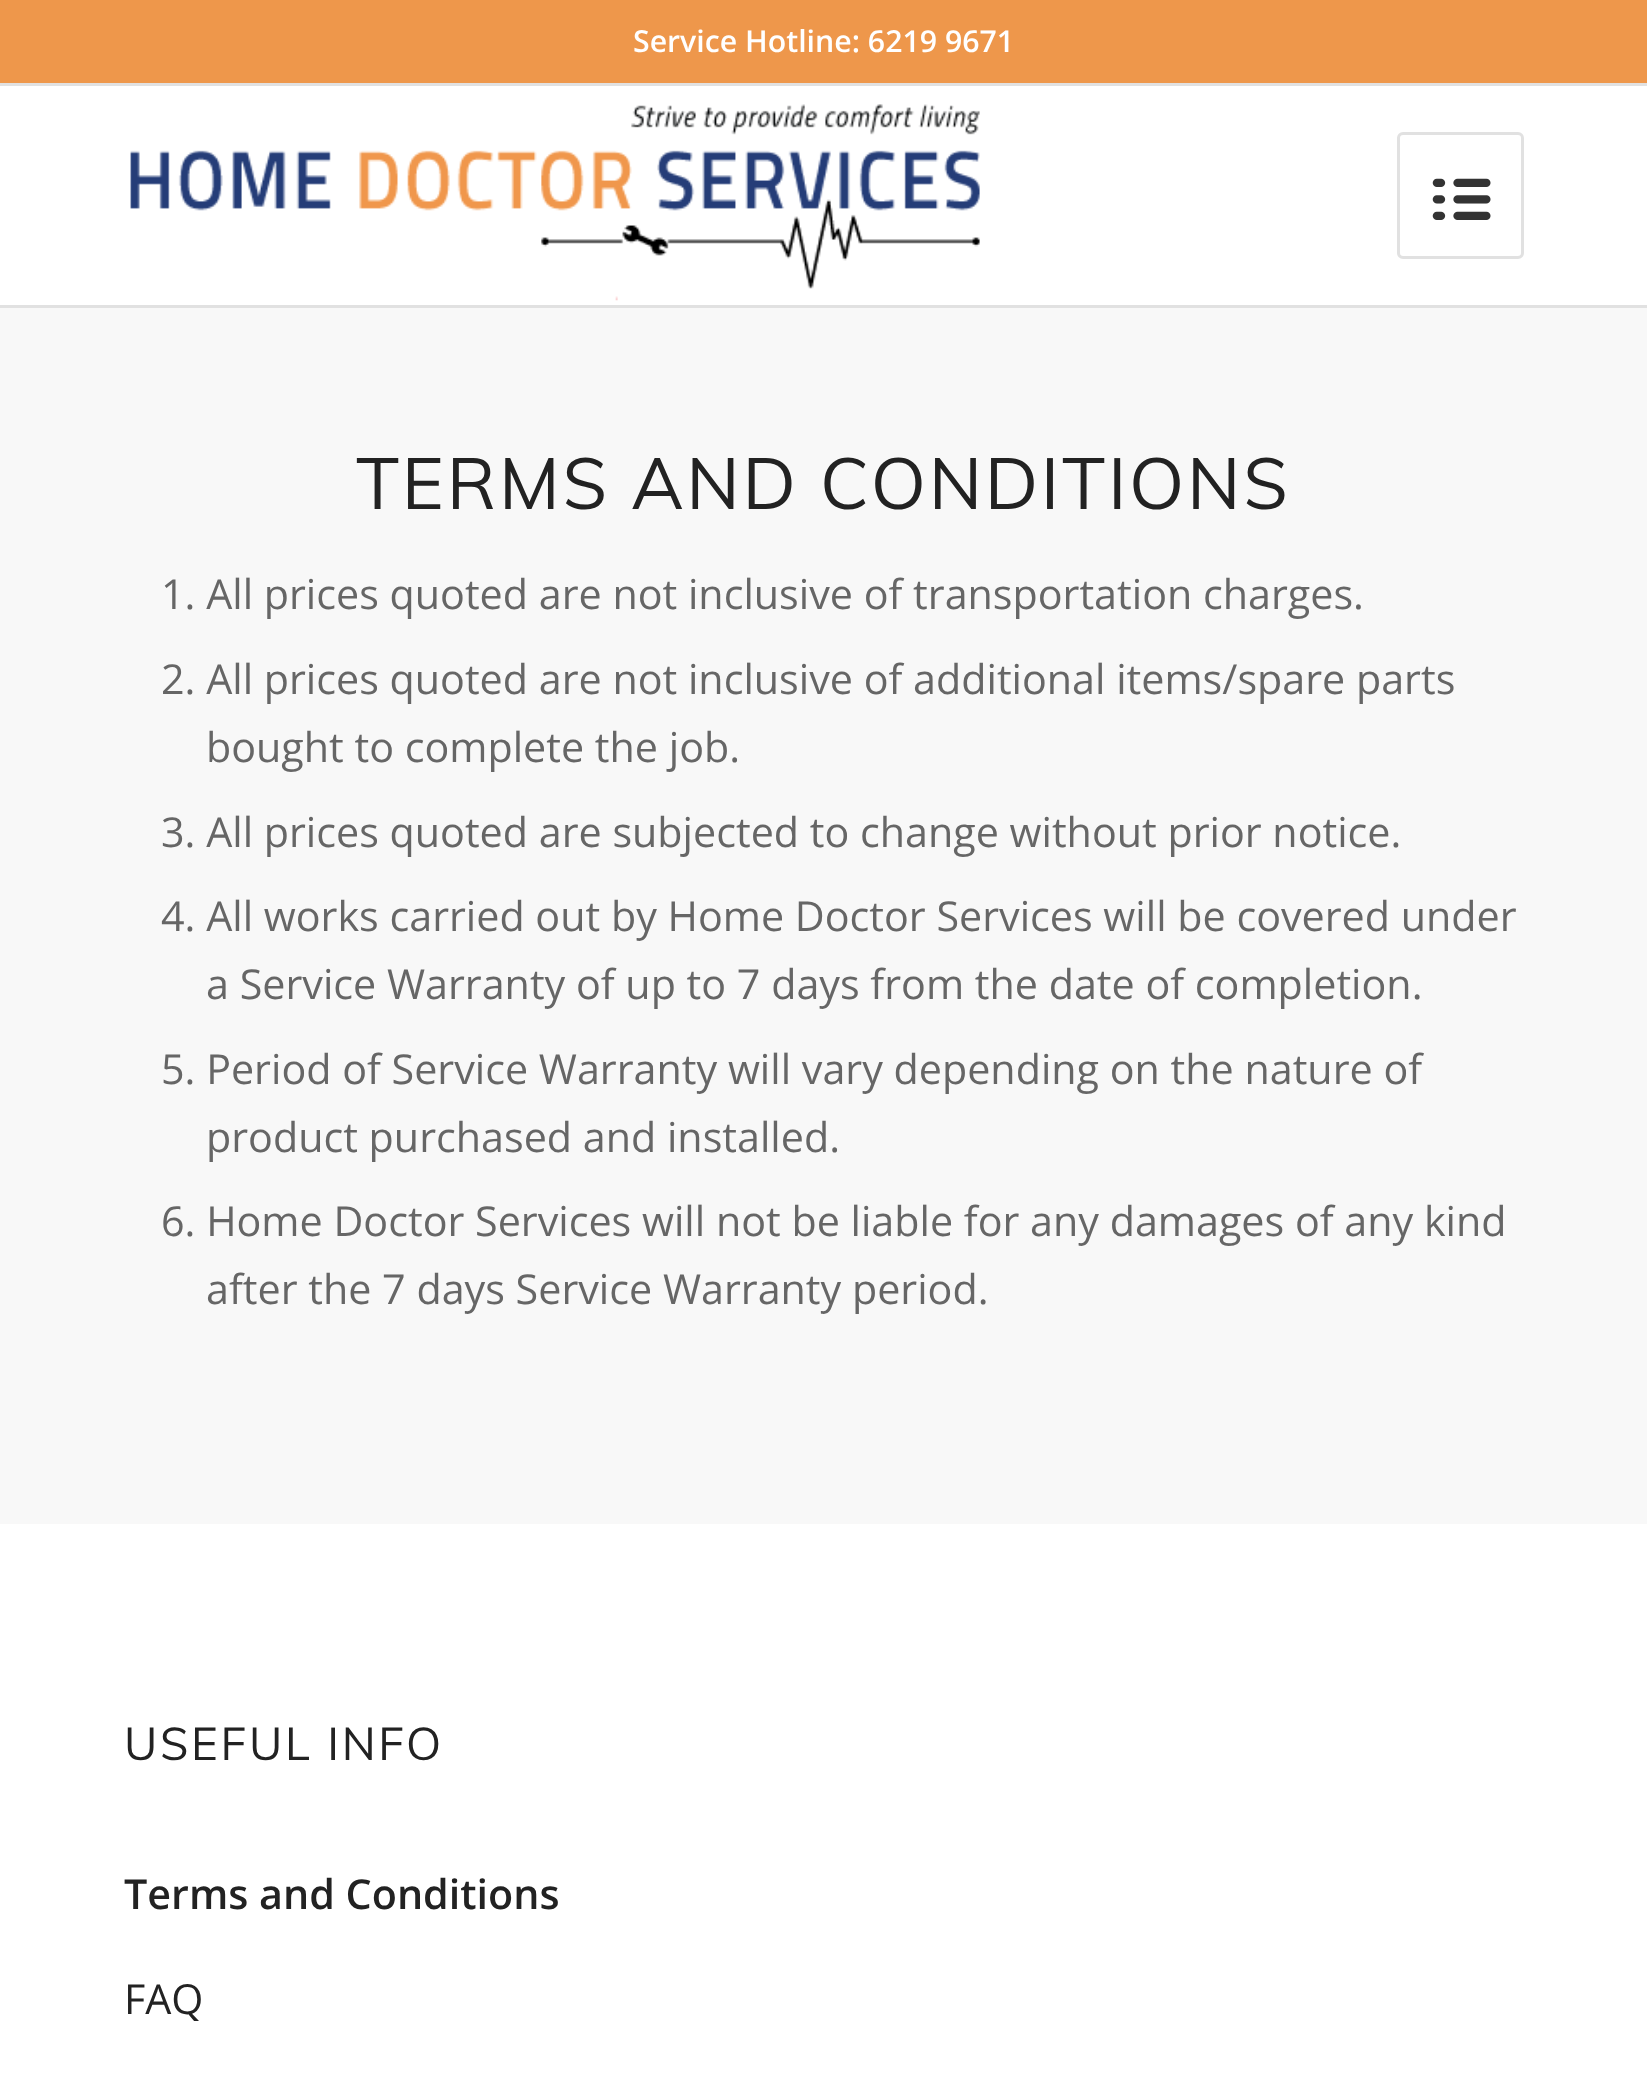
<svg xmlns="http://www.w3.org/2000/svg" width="1647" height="2096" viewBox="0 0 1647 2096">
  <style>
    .t1 { font: 600 30.25px Open Sans; fill: #fff; }
    .t2 { font: 71.5px Muli; letter-spacing: 2.75px; fill: #222; }
    .t3 { font: 41.25px Open Sans; fill: #666; }
    .t4 { font: 45.5px Muli; letter-spacing: 2.75px; fill: #222; }
    .t5 { font: 600 41.25px Open Sans; fill: #222; }
    .t6 { font: 41.25px Open Sans; fill: #222; }
  </style>
  <rect width="100%" height="100%" fill="#fff"/>
  <rect x="0" y="0" width="1647" height="83" fill="#ee974b"/>
  <rect x="0" y="83" width="1647" height="3" fill="#e1e1e1"/>
  <text x="633" y="52" class="t1">Service Hotline: 6219 9671</text>
  <rect x="0" y="305" width="1647" height="3" fill="#e1e1e1"/>
  <image x="130" y="104" width="850" height="197" href="images/1.png"/>
  <rect x="1398.5" y="133.5" width="124" height="124" rx="4.5" fill="none" stroke="#e1e1e1" stroke-width="3"/>
  <image x="1432" y="178" width="59" height="42" href="images/2.png"/>
  <rect x="0" y="308" width="1647" height="1216" fill="#f8f8f8"/>
  <text x="356" y="509" class="t2">TERMS AND CONDITIONS</text>
  <text x="161" y="609" class="t3">1. All prices quoted are not inclusive of transportation charges.</text>
  <text x="161" y="694" class="t3">2. All prices quoted are not inclusive of additional items/spare parts</text>
  <text x="206" y="762" class="t3">bought to complete the job.</text>
  <text x="161" y="847" class="t3">3. All prices quoted are subjected to change without prior notice.</text>
  <text x="161" y="931" class="t3">4. All works carried out by Home Doctor Services will be covered under</text>
  <text x="206" y="999" class="t3">a Service Warranty of up to 7 days from the date of completion.</text>
  <text x="161" y="1084" class="t3">5. Period of Service Warranty will vary depending on the nature of</text>
  <text x="206" y="1152" class="t3">product purchased and installed.</text>
  <text x="161" y="1236" class="t3">6. Home Doctor Services will not be liable for any damages of any kind</text>
  <text x="206" y="1304" class="t3">after the 7 days Service Warranty period.</text>
  <text x="124" y="1760" class="t4">USEFUL INFO</text>
  <text x="124" y="1909" class="t5">Terms and Conditions</text>
  <text x="124" y="2014" class="t6">FAQ</text>
</svg>
